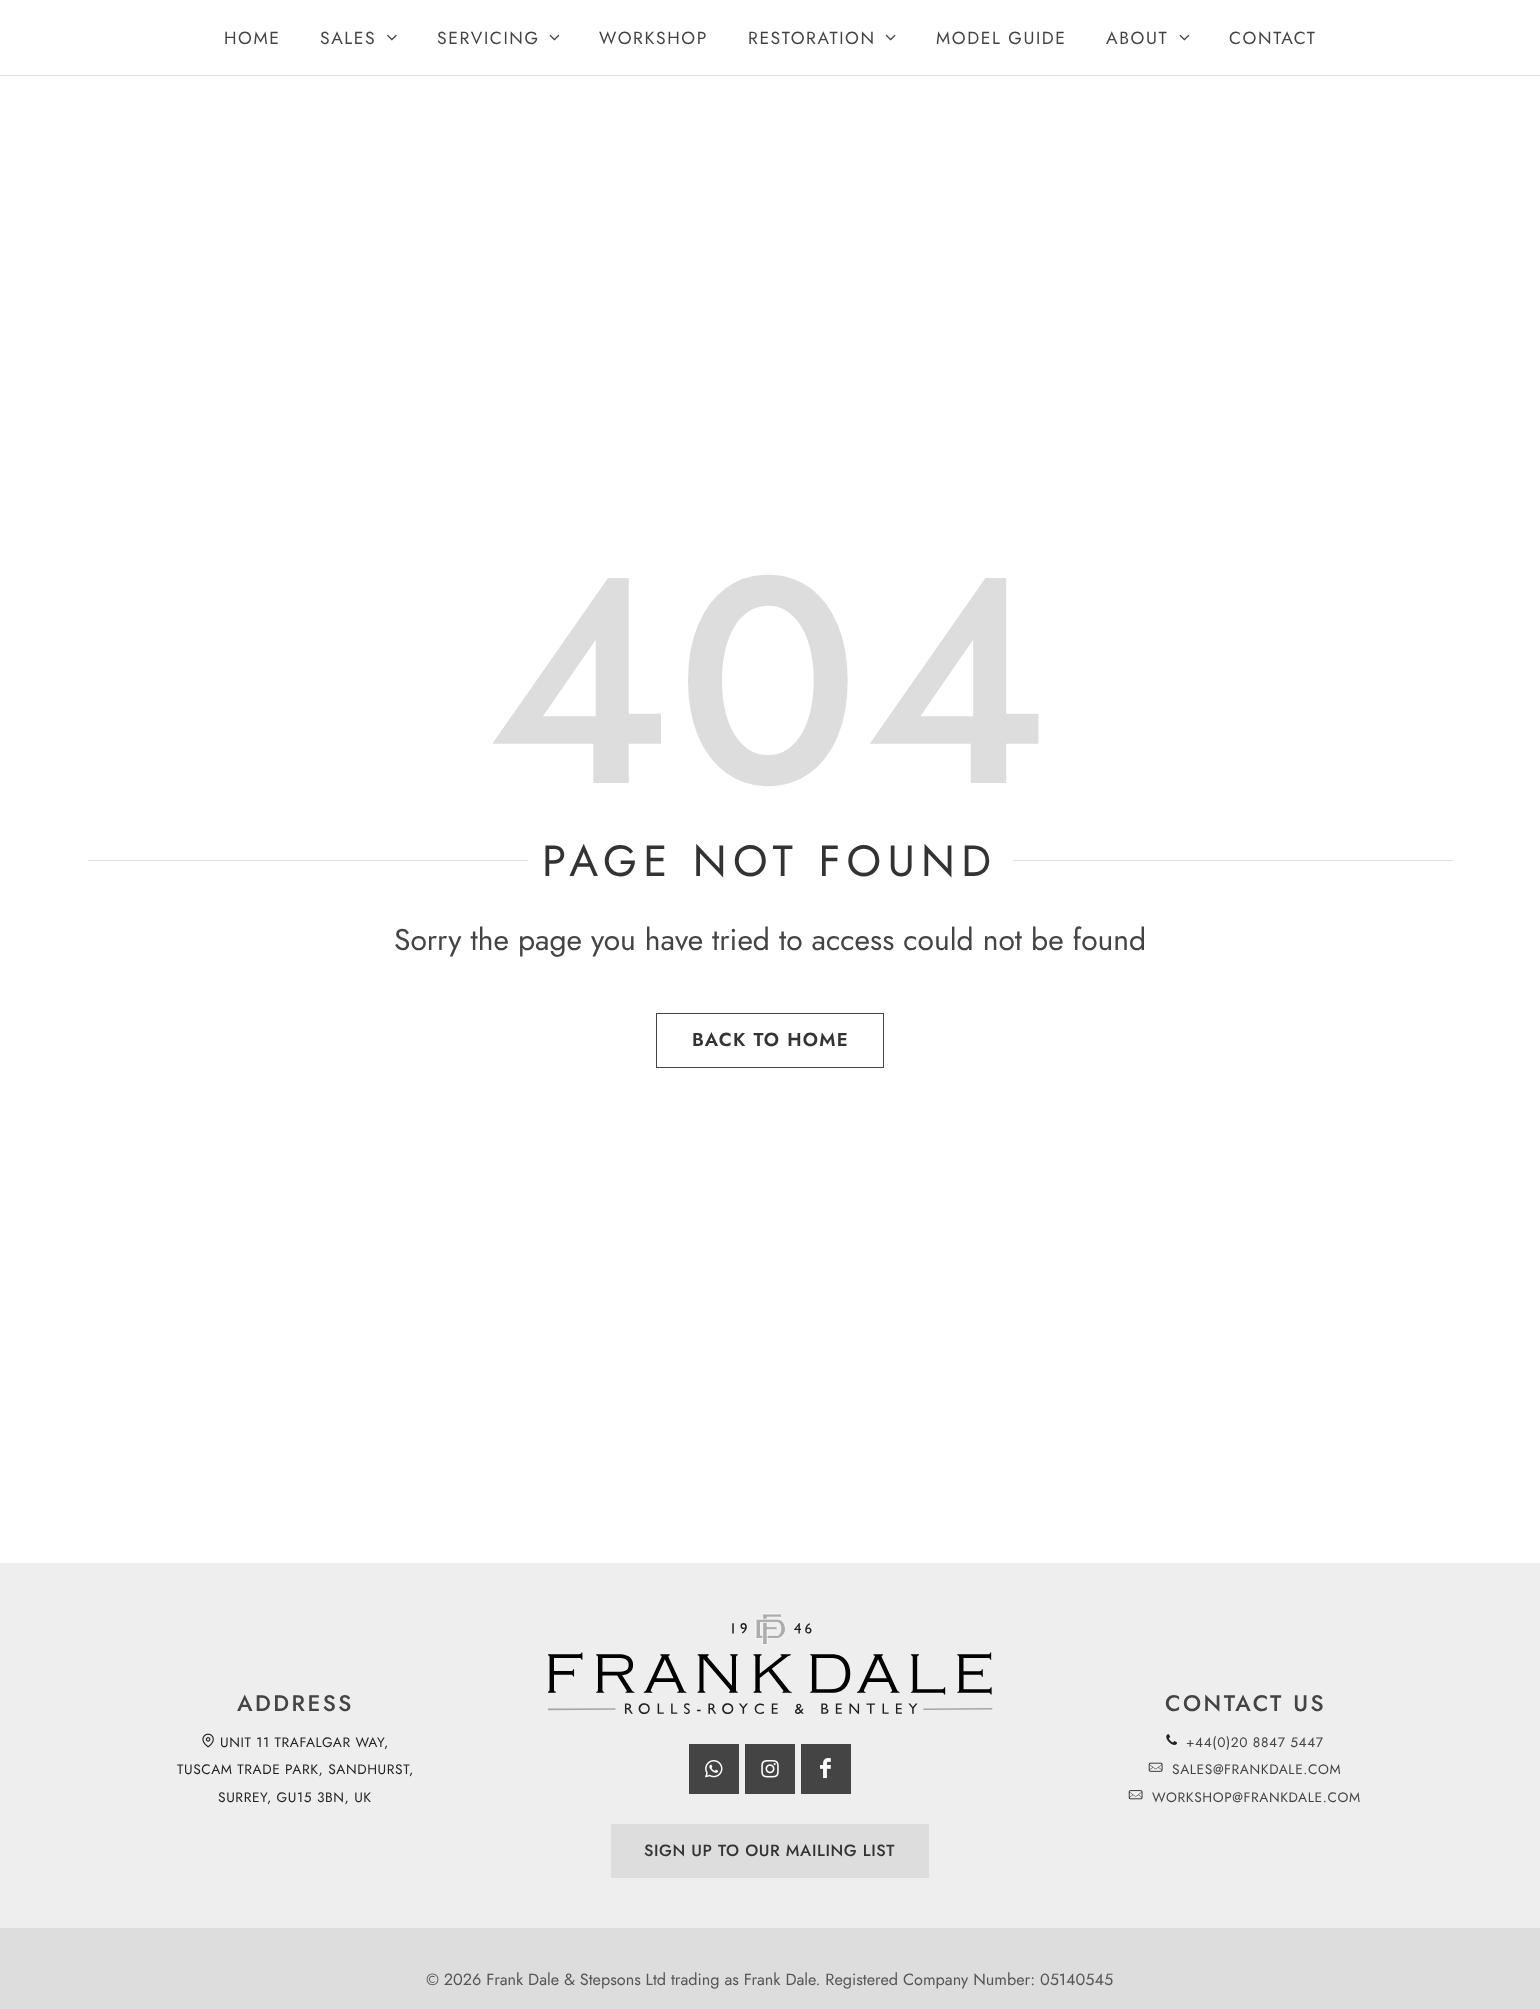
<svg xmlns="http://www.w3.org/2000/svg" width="1540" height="2009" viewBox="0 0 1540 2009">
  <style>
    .t1 { font: 17.5px Jost; letter-spacing: 1.6px; fill: #444; }
    .t2 { font: 500 293px Jost; letter-spacing: 5px; fill: #ddd; }
    .t3 { font: 43.75px Jost; letter-spacing: 6.25px; fill: #333; }
    .t4 { font: 30px Jost; fill: #444; }
    .t5 { font: 600 18.75px Jost; letter-spacing: 1.25px; fill: #333; }
    .t6 { font: 500 22.5px Jost; letter-spacing: 2.5px; fill: #444; }
    .t7 { font: 13.75px Jost; letter-spacing: 0.6px; fill: #222; }
    .t8 { font: 13.75px Jost; letter-spacing: 0.6px; fill: #444; }
    .t9 { font: 500 16.25px Jost; letter-spacing: 0.6px; fill: #333; }
    .t10 { font: 16.25px Jost; fill: #555; }
  </style>
  <rect width="100%" height="100%" fill="#fff"/>
  <rect x="0" y="75" width="1540" height="1" fill="#ddd"/>
  <text x="224" y="44" class="t1">HOME</text>
  <text x="320" y="44" class="t1">SALES</text>
  <image x="387" y="34" width="10" height="7" href="images/1.png"/>
  <text x="437" y="44" class="t1">SERVICING</text>
  <image x="549" y="34" width="11" height="7" href="images/2.png"/>
  <text x="599" y="44" class="t1">WORKSHOP</text>
  <text x="748" y="44" class="t1">RESTORATION</text>
  <image x="885" y="34" width="11" height="7" href="images/3.png"/>
  <text x="936" y="44" class="t1">MODEL GUIDE</text>
  <text x="1106" y="44" class="t1">ABOUT</text>
  <image x="1179" y="34" width="11" height="7" href="images/2.png"/>
  <text x="1229" y="44" class="t1">CONTACT</text>
  <text x="487" y="783" class="t2">404</text>
  <rect x="88" y="860" width="440" height="1" fill="#dedede"/>
  <text x="542" y="876" class="t3">PAGE NOT FOUND</text>
  <rect x="1013" y="860" width="440" height="1" fill="#dedede"/>
  <text x="394" y="950" class="t4">Sorry the page you have tried to access could not be found</text>
  <rect x="656.5" y="1013.5" width="227" height="54" fill="none" stroke="#444"/>
  <text x="692" y="1046" class="t5">BACK TO HOME</text>
  <rect x="0" y="1563" width="1540" height="365" fill="#eee"/>
  <text x="237" y="1711" class="t6">ADDRESS</text>
  <image x="202" y="1733" width="12" height="15" href="images/4.png"/>
  <text x="220" y="1747" class="t7">UNIT 11 TRAFALGAR WAY,</text>
  <text x="177" y="1774" class="t7">TUSCAM TRADE PARK, SANDHURST,</text>
  <text x="218" y="1802" class="t7">SURREY, GU15 3BN, UK</text>
  <text x="1165" y="1711" class="t6">CONTACT US</text>
  <image x="1166" y="1734" width="11" height="11" href="images/5.png"/>
  <text x="1186" y="1747" class="t8">+44(0)20 8847 5447</text>
  <image x="1148" y="1762" width="15" height="10" href="images/6.png"/>
  <text x="1172" y="1774" class="t8">SALES@FRANKDALE.COM</text>
  <image x="1128" y="1790" width="15" height="10" href="images/7.png"/>
  <text x="1152" y="1802" class="t8">WORKSHOP@FRANKDALE.COM</text>
  <image x="548" y="1613" width="445" height="101" href="images/8.png"/>
  <rect x="689" y="1744" width="50" height="50" fill="#444"/>
  <image x="705" y="1760" width="18" height="18" href="images/9.png"/>
  <rect x="745" y="1744" width="50" height="50" fill="#444"/>
  <image x="761" y="1760" width="18" height="18" href="images/10.png"/>
  <rect x="801" y="1744" width="50" height="50" fill="#444"/>
  <image x="820" y="1758" width="11" height="21" href="images/11.png"/>
  <rect x="611" y="1824" width="318" height="54" fill="#ddd"/>
  <text x="644" y="1856" class="t9">SIGN UP TO OUR MAILING LIST</text>
  <rect x="0" y="1928" width="1540" height="81" fill="#ddd"/>
  <text x="426" y="1985" class="t10">© 2026 Frank Dale &amp; Stepsons Ltd trading as Frank Dale. Registered Company Number: 05140545</text>
</svg>
